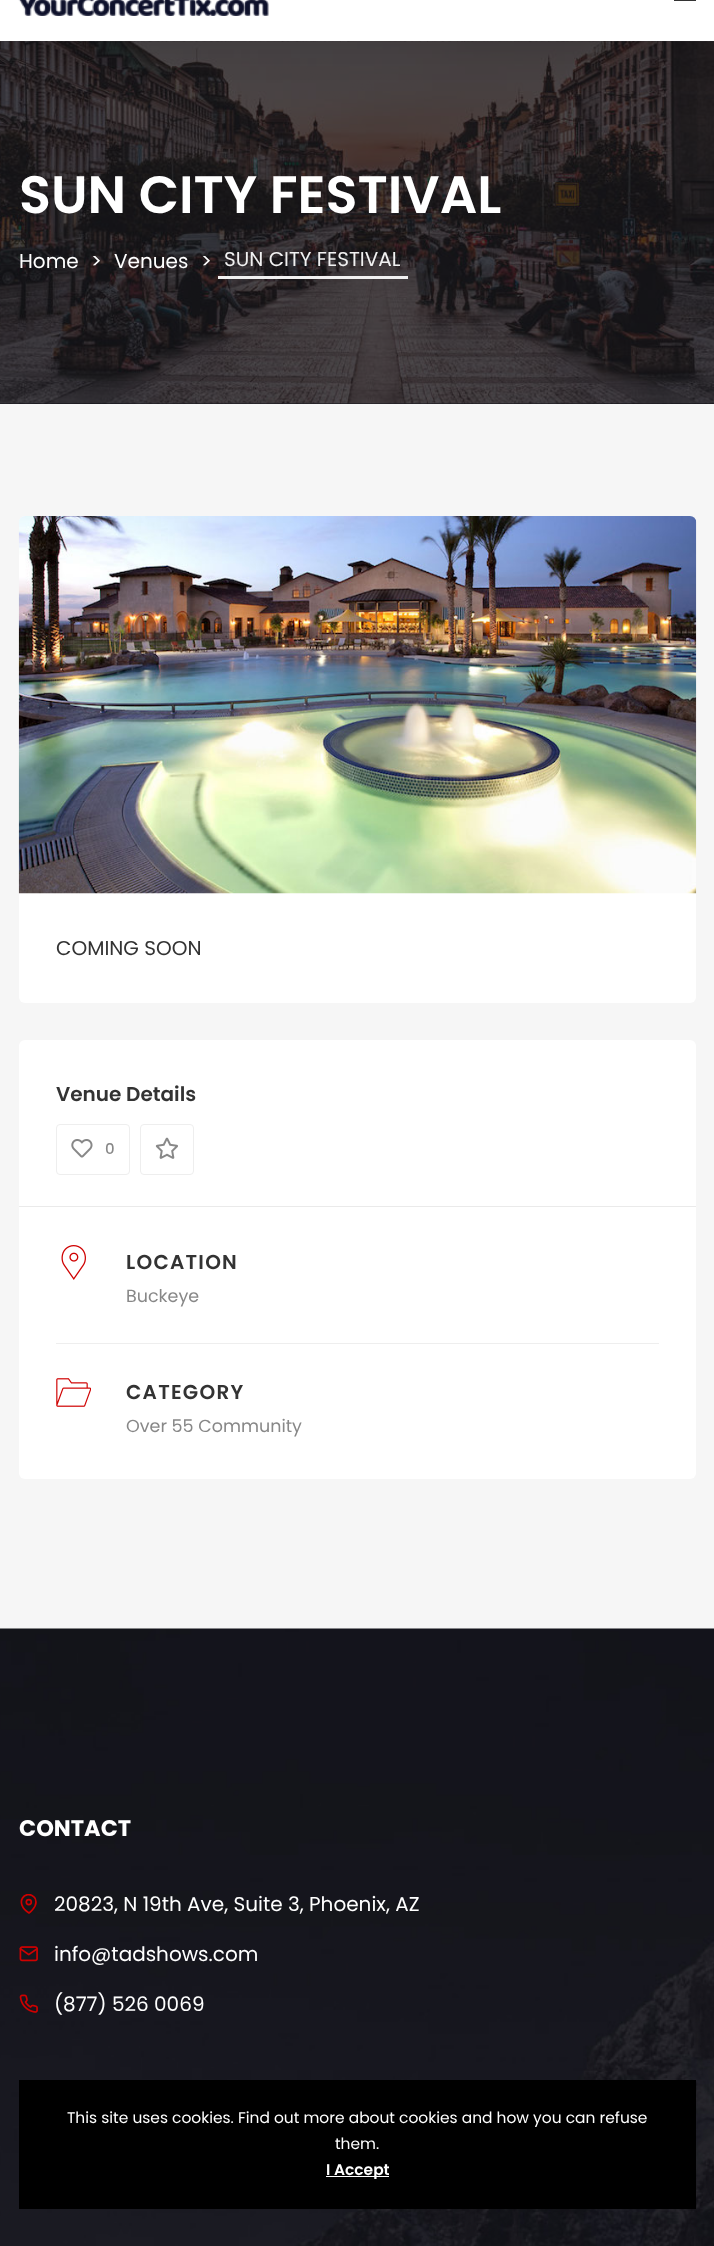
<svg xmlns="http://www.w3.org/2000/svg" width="714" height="2246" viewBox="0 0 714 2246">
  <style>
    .t1 { font: 600 52.5px Poppins; fill: #fff; }
    .t2 { font: 20px Poppins; fill: #fff; }
    .t3 { font: 20px Poppins; fill: #f1f1f1; }
    .t4 { font: 20px Poppins; fill: #333; }
    .t5 { font: 600 20px Poppins; fill: #333; }
    .t6 { font: 500 15px Poppins; fill: #888; }
    .t7 { font: 600 20px Poppins; letter-spacing: 1.25px; fill: #333; }
    .t8 { font: 17.5px Poppins; fill: #888; }
    .t9 { font: bold 22.5px Poppins; fill: #fff; }
    .t10 { font: 15.45px Poppins; fill: #fff; }
    .t11 { font: 600 15.45px Poppins; fill: #fff; }
  </style>
  <defs>
    <clipPath id="clip1"><rect x="19" y="1894" width="20" height="20"/></clipPath>
  </defs>
  <rect width="100%" height="100%" fill="#f6f6f6"/>
  <rect x="0" y="41" width="714" height="363" fill="#121219"/>
  <image x="0" y="41" width="714" height="363" href="images/2.png"/>
  <rect x="0" y="-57" width="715" height="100" fill="#0000001a" filter="blur(19px)"/>
  <rect x="0" y="0" width="714" height="41" fill="#fff"/>
  <image x="18" y="0" width="251" height="16" href="images/1.png"/>
  <rect x="674" y="0" width="22" height="1" fill="#333"/>
  <text x="19" y="213" class="t1">SUN CITY FESTIVAL</text>
  <text x="19" y="268" class="t2">Home</text>
  <text x="91" y="268" class="t2">&gt;</text>
  <text x="114" y="268" class="t2">Venues</text>
  <text x="201" y="268" class="t2">&gt;</text>
  <rect x="218" y="276" width="190" height="3" fill="#f1f1f1"/>
  <text x="224" y="266" class="t3">SUN CITY FESTIVAL</text>
  <rect x="19" y="516" width="677" height="487" rx="6" fill="#fff"/>
  <image x="18" y="516" width="679" height="378" href="images/3.png"/>
  <text x="56" y="955" class="t4">COMING SOON</text>
  <rect x="19" y="1040" width="677" height="439" rx="6" fill="#fff"/>
  <rect x="19" y="1206" width="677" height="1" fill="#eaeaea"/>
  <text x="56" y="1101" class="t5">Venue Details</text>
  <rect x="56.5" y="1124.5" width="73" height="50" rx="3.5" fill="none" stroke="#eee"/>
  <image x="71" y="1139" width="22" height="19" href="images/4.png"/>
  <text x="105" y="1154" class="t6">0</text>
  <rect x="140.5" y="1124.5" width="53" height="50" rx="3.5" fill="none" stroke="#eee"/>
  <image x="155" y="1137" width="23" height="22" href="images/5.png"/>
  <rect x="56" y="1343" width="603" height="1" fill="#eee"/>
  <image x="61" y="1245" width="25" height="35" href="images/6.png"/>
  <text x="126" y="1269" class="t7">LOCATION</text>
  <text x="126" y="1302" class="t8">Buckeye</text>
  <image x="56" y="1378" width="35" height="29" href="images/7.png"/>
  <text x="126" y="1399" class="t7">CATEGORY</text>
  <text x="126" y="1432" class="t8">Over 55 Community</text>
  <image x="0" y="1628" width="714" height="618" href="images/8.png"/>
  <text x="19" y="1836" class="t9">CONTACT</text>
  <g clip-path="url(#clip1)">
    <path d="M36 1902C36 1908 29 1913 29 1913C13 1902.5 26 1889 34 1897C35.5 1898 36 1900 36 1902Z" fill="none" stroke="#cf0000" stroke-width="1.7" stroke-linecap="round" stroke-linejoin="round"/>
  </g>
  <circle cx="28.8" cy="1902.1" r="2.5" fill="none" stroke="#cf0000" stroke-width="1.7"/>
  <text x="54" y="1911" class="t2">20823, N 19th Ave, Suite 3, Phoenix, AZ</text>
  <image x="19" y="1946" width="19" height="16" href="images/9.png"/>
  <text x="54" y="1961" class="t2">info@tadshows.com</text>
  <image x="19" y="1994" width="19" height="19" href="images/10.png"/>
  <text x="54" y="2011" class="t2">(877) 526 0069</text>
  <rect x="19" y="2080" width="677" height="129" fill="#000"/>
  <text x="67" y="2123" class="t10">This site uses cookies. Find out more about cookies and how you can refuse</text>
  <text x="335" y="2149" class="t10">them.</text>
  <rect x="326" y="2176" width="63" height="1" fill="#fff"/>
  <text x="326" y="2175" class="t11">I Accept</text>
</svg>
